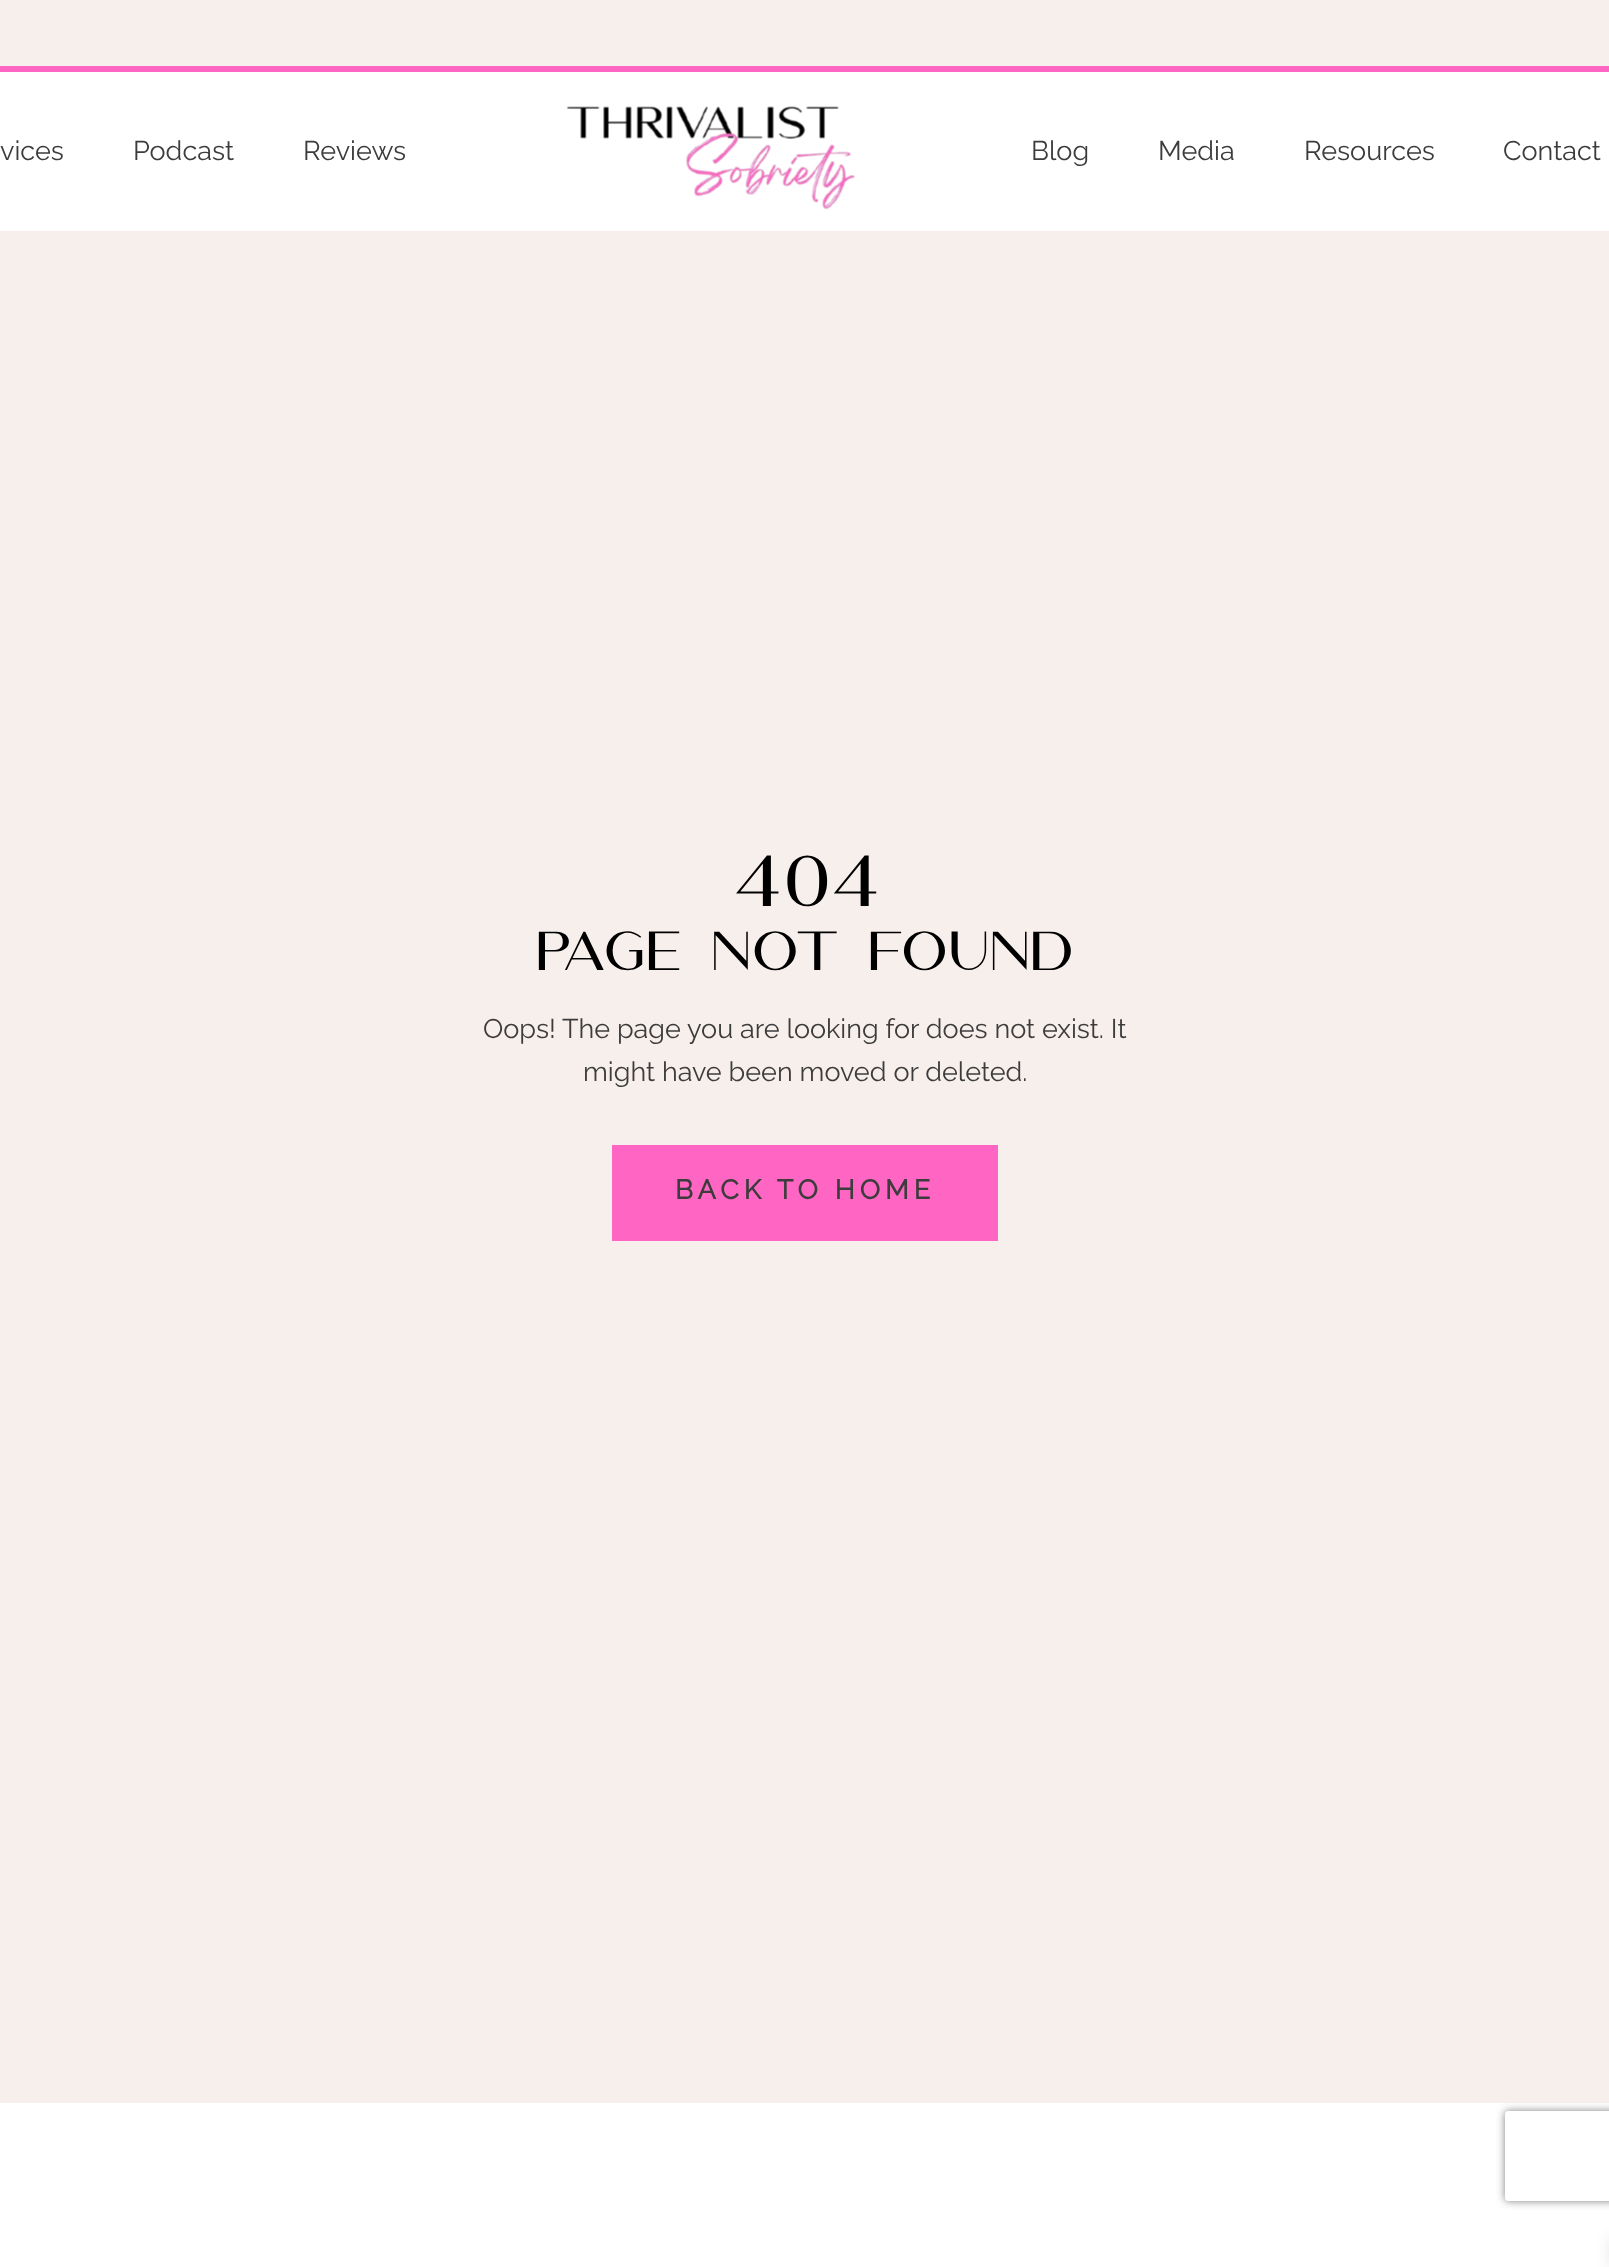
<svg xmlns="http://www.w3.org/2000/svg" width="1609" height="2267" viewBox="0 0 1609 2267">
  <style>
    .t1 { font: 100 27px Raleway; fill: #3c3c3c; }
    .t2 { font: 63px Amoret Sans; letter-spacing: -1px; fill: #000; }
    .t3 { font: 48px Amoret Sans; letter-spacing: -1px; fill: #000; }
    .t4 { font: bold 27px Raleway; letter-spacing: 5px; fill: #3c3c3c; }
  </style>
  <defs>
    <clipPath id="clip1"><path d="M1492 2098H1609V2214H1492ZM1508 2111H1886C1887.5 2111 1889 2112.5 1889 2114V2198C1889 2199.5 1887.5 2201 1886 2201H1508C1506.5 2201 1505 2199.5 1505 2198V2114C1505 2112.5 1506.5 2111 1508 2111Z" clip-rule="evenodd"/></clipPath>
  </defs>
  <rect width="100%" height="100%" fill="#fff"/>
  <rect x="0" y="0" width="1609" height="2103" fill="#f7efec"/>
  <rect x="0" y="72" width="1609" height="159" fill="#fff"/>
  <rect x="0" y="66" width="1609" height="6" fill="#ff66c4"/>
  <text x="0" y="160" class="t1">vices</text>
  <text x="133" y="160" class="t1">Podcast</text>
  <text x="303" y="160" class="t1">Reviews</text>
  <image x="566" y="106" width="289" height="104" href="images/1.png"/>
  <text x="1031" y="160" class="t1">Blog</text>
  <text x="1158" y="160" class="t1">Media</text>
  <text x="1304" y="160" class="t1">Resources</text>
  <text x="1503" y="160" class="t1">Contact</text>
  <text x="731" y="906" class="t2">404</text>
  <text x="535" y="970" class="t3">Page not found</text>
  <text x="483" y="1038" class="t1">Oops! The page you are looking for does not exist. It</text>
  <text x="583" y="1081" class="t1">might have been moved or deleted.</text>
  <rect x="612" y="1145" width="386" height="96" fill="#ff66c4"/>
  <text x="675" y="1199" class="t4">BACK TO HOME</text>
  <g clip-path="url(#clip1)">
    <rect x="1505" y="2111" width="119" height="90" rx="3" fill="#808080" filter="blur(4px)"/>
  </g>
  <rect x="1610" y="2237" width="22" height="30" fill="#0000001a" filter="blur(7.5px)"/>
</svg>
